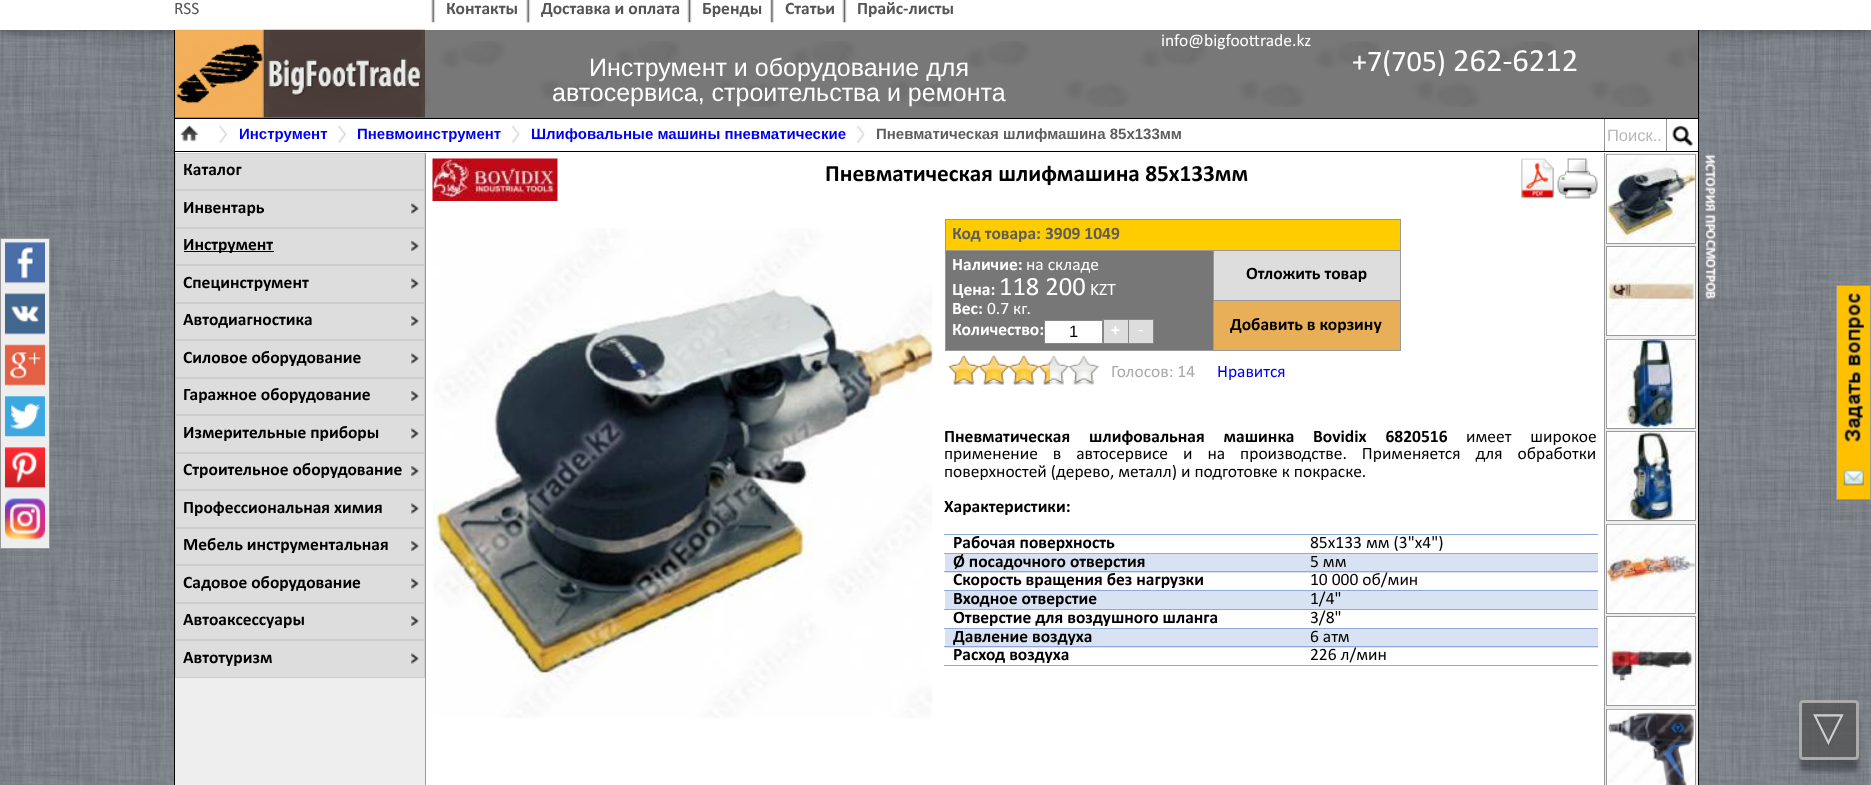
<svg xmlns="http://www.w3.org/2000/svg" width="1871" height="785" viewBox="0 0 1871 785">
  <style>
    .t1 { font: 17.5px Calibri; fill: #555; }
    .t2 { font: bold 17.5px Calibri; fill: #555; }
    .t3 { font: 17.5px Calibri; fill: #fff; }
    .t4 { font: 25px Liberation Sans; fill: #fff; }
    .t5 { font: 30px Calibri; fill: #fff; }
    .t6 { font: 32.5px Calibri; fill: #fff; }
    .t7 { font: bold 15px Liberation Sans; fill: #00e; }
    .t8 { font: bold 15px Liberation Sans; fill: #5d5d5d; }
    .t9 { font: 16.5px Liberation Sans; fill: #b8b8b8; }
    .t10 { font: bold 17.5px Calibri; fill: #000; }
    .t11 { font: bold 23.3px Calibri; fill: #000; }
    .t12 { font: bold 17.5px Calibri; fill: #5d5d5d; }
    .t13 { font: bold 17.5px Calibri; fill: #fff; }
    .t14 { font: 26.5px Calibri; fill: #fff; }
    .t15 { font: 16.5px Liberation Sans; fill: #000; }
    .t16 { font: 17.5px Calibri; fill: #aaa; }
    .t17 { font: 17.5px Calibri; fill: #00e; }
    .t18 { font: 17.5px Calibri; fill: #000; }
    .t19 { font: 40px DejaVu Sans; fill: #cecfcf; }
  </style>
  <defs>
    <clipPath id="clip1"><path d="M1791 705H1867V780H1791ZM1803 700H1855C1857 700 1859 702 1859 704V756C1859 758 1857 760 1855 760H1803C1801 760 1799 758 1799 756V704C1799 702 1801 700 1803 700Z" clip-rule="evenodd"/></clipPath>
  </defs>
  <rect width="100%" height="100%" fill="#fff"/>
  <image x="0" y="30" width="1871" height="755" href="images/1.png"/>
  <rect x="0" y="-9" width="1871" height="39" fill="#00000080" filter="blur(6px)"/>
  <rect x="0" y="0" width="1871" height="30" fill="#fff"/>
  <rect x="0.5" y="238.5" width="49" height="310" fill="#eee" stroke="#999"/>
  <image x="5" y="242" width="40" height="42" href="images/2.png"/>
  <image x="5" y="293" width="40" height="42" href="images/3.png"/>
  <image x="5" y="344" width="40" height="42" href="images/4.png"/>
  <image x="5" y="396" width="40" height="41" href="images/5.png"/>
  <image x="5" y="447" width="40" height="42" href="images/6.png"/>
  <image x="5" y="498" width="40" height="42" href="images/7.png"/>
  <rect x="174" y="30" width="1525" height="123" fill="#fff"/>
  <text x="174" y="14" class="t1">RSS</text>
  <image x="431" y="0" width="5" height="23" href="images/8.png"/>
  <text x="446" y="14" class="t2">Контакты</text>
  <image x="526" y="0" width="5" height="23" href="images/8.png"/>
  <text x="541" y="14" class="t2">Доставка и оплата</text>
  <image x="687" y="0" width="5" height="23" href="images/9.png"/>
  <text x="702" y="14" class="t2">Бренды</text>
  <image x="770" y="0" width="4" height="23" href="images/10.png"/>
  <text x="785" y="14" class="t2">Статьи</text>
  <image x="842" y="0" width="5" height="23" href="images/9.png"/>
  <text x="857" y="14" class="t2">Прайс-листы</text>
  <rect x="175" y="30" width="1523" height="88" fill="#787878"/>
  <image x="425" y="41" width="1272" height="66" href="images/11.png"/>
  <image x="175" y="29" width="250" height="89" href="images/12.png"/>
  <text x="1161" y="46" class="t3">info@bigfoottrade.kz</text>
  <text x="589" y="76" class="t4">Инструмент и оборудование для</text>
  <text x="552" y="101" class="t4">автосервиса, строительства и ремонта</text>
  <text x="1352" y="71" class="t5">+7(705)</text>
  <text x="1453" y="71" class="t6">262-6212</text>
  <rect x="175" y="118" width="1523" height="1" fill="#000"/>
  <rect x="175" y="151" width="1523" height="1" fill="#000"/>
  <image x="180" y="125" width="19" height="17" href="images/13.png"/>
  <image x="219" y="125" width="9" height="19" href="images/14.png"/>
  <text x="239" y="139" class="t7">Инструмент</text>
  <image x="337" y="125" width="10" height="19" href="images/15.png"/>
  <text x="357" y="139" class="t7">Пневмоинструмент</text>
  <image x="511" y="125" width="9" height="19" href="images/16.png"/>
  <text x="531" y="139" class="t7">Шлифовальные машины пневматические</text>
  <image x="856" y="125" width="9" height="19" href="images/16.png"/>
  <text x="876" y="139" class="t8">Пневматическая шлифмашина 85х133мм</text>
  <rect x="1666" y="119" width="1" height="32" fill="#999"/>
  <rect x="1604" y="119" width="1" height="32" fill="#999"/>
  <text x="1607" y="141" class="t9">Поиск..</text>
  <image x="1672" y="125" width="21" height="22" href="images/17.png"/>
  <rect x="1698" y="30" width="1" height="755" fill="#000"/>
  <rect x="174" y="30" width="1" height="755" fill="#000"/>
  <rect x="175" y="678" width="250" height="107" fill="#eee"/>
  <rect x="425" y="153" width="1" height="632" fill="#999"/>
  <rect x="175.5" y="153.5" width="249" height="36" fill="#ddd" stroke="#cdcdcd"/>
  <text x="183" y="175" class="t10">Каталог</text>
  <rect x="175.5" y="190.5" width="249" height="37" fill="#ddd" stroke="#cdcdcd"/>
  <text x="183" y="213" class="t10">Инвентарь</text>
  <image x="411" y="203" width="8" height="11" href="images/18.png"/>
  <rect x="175.5" y="228.5" width="249" height="36" fill="#ddd" stroke="#cdcdcd"/>
  <rect x="184" y="251" width="90" height="1" fill="#000"/>
  <text x="183" y="250" class="t10">Инструмент</text>
  <image x="411" y="241" width="8" height="10" href="images/19.png"/>
  <rect x="175.5" y="265.5" width="249" height="37" fill="#ddd" stroke="#cdcdcd"/>
  <text x="183" y="288" class="t10">Специнструмент</text>
  <image x="411" y="278" width="8" height="11" href="images/18.png"/>
  <rect x="175.5" y="303.5" width="249" height="36" fill="#ddd" stroke="#cdcdcd"/>
  <text x="183" y="325" class="t10">Автодиагностика</text>
  <image x="411" y="316" width="8" height="10" href="images/19.png"/>
  <rect x="175.5" y="340.5" width="249" height="37" fill="#ddd" stroke="#cdcdcd"/>
  <text x="183" y="363" class="t10">Силовое оборудование</text>
  <image x="411" y="353" width="8" height="11" href="images/18.png"/>
  <rect x="175.5" y="378.5" width="249" height="36" fill="#ddd" stroke="#cdcdcd"/>
  <text x="183" y="400" class="t10">Гаражное оборудование</text>
  <image x="411" y="391" width="8" height="10" href="images/19.png"/>
  <rect x="175.5" y="415.5" width="249" height="37" fill="#ddd" stroke="#cdcdcd"/>
  <text x="183" y="438" class="t10">Измерительные приборы</text>
  <image x="411" y="428" width="8" height="11" href="images/18.png"/>
  <rect x="175.5" y="453.5" width="249" height="36" fill="#ddd" stroke="#cdcdcd"/>
  <text x="183" y="475" class="t10">Строительное оборудование</text>
  <image x="411" y="466" width="8" height="10" href="images/19.png"/>
  <rect x="175.5" y="490.5" width="249" height="37" fill="#ddd" stroke="#cdcdcd"/>
  <text x="183" y="513" class="t10">Профессиональная химия</text>
  <image x="411" y="503" width="8" height="11" href="images/18.png"/>
  <rect x="175.5" y="528.5" width="249" height="36" fill="#ddd" stroke="#cdcdcd"/>
  <text x="183" y="550" class="t10">Мебель инструментальная</text>
  <image x="411" y="541" width="8" height="10" href="images/19.png"/>
  <rect x="175.5" y="565.5" width="249" height="37" fill="#ddd" stroke="#cdcdcd"/>
  <text x="183" y="588" class="t10">Cадовое оборудование</text>
  <image x="411" y="578" width="8" height="11" href="images/18.png"/>
  <rect x="175.5" y="603.5" width="249" height="36" fill="#ddd" stroke="#cdcdcd"/>
  <text x="183" y="625" class="t10">Автоаксессуары</text>
  <image x="411" y="616" width="8" height="10" href="images/19.png"/>
  <rect x="175.5" y="640.5" width="249" height="37" fill="#ddd" stroke="#cdcdcd"/>
  <text x="183" y="663" class="t10">Автотуризм</text>
  <image x="411" y="653" width="8" height="11" href="images/18.png"/>
  <rect x="426" y="153" width="1178" height="632" fill="#fff"/>
  <image x="432" y="158" width="126" height="43" href="images/20.png"/>
  <text x="825" y="181" class="t11">Пневматическая шлифмашина 85х133мм</text>
  <image x="1521" y="158" width="33" height="41" href="images/21.png"/>
  <image x="1557" y="158" width="41" height="41" href="images/22.png"/>
  <image x="433" y="228" width="500" height="490" href="images/23.png"/>
  <rect x="945.5" y="219.5" width="455" height="31" fill="#fc0" stroke="#999"/>
  <text x="952" y="239" class="t12">Код товара: 3909 1049</text>
  <rect x="946" y="251" width="267" height="99" fill="#777"/>
  <rect x="1400" y="251" width="1" height="100" fill="#999"/>
  <rect x="945" y="350" width="456" height="1" fill="#999"/>
  <rect x="945" y="251" width="1" height="100" fill="#999"/>
  <text x="952" y="270" class="t13">Наличие:</text>
  <text x="1026" y="270" class="t3">на складе</text>
  <text x="952" y="295" class="t13">Цена:</text>
  <text x="999" y="295" class="t14">118 200</text>
  <text x="1090" y="295" class="t3">KZT</text>
  <text x="952" y="314" class="t13">Вес:</text>
  <text x="987" y="314" class="t3">0.7 кг.</text>
  <text x="952" y="335" class="t13">Количество:</text>
  <rect x="1044.5" y="320.5" width="58" height="23" fill="#fff" stroke="#888"/>
  <text x="1069" y="337" class="t15">1</text>
  <rect x="1104" y="320" width="24" height="23" fill="#ddd"/>
  <rect x="1128" y="319" width="26" height="1" fill="#888"/>
  <rect x="1153" y="319" width="1" height="25" fill="#888"/>
  <rect x="1128" y="343" width="26" height="1" fill="#888"/>
  <rect x="1128" y="319" width="1" height="25" fill="#888"/>
  <rect x="1103" y="319" width="26" height="1" fill="#888"/>
  <rect x="1103" y="343" width="26" height="1" fill="#888"/>
  <rect x="1103" y="319" width="1" height="25" fill="#888"/>
  <text x="1111" y="335" class="t13">+</text>
  <rect x="1129" y="320" width="24" height="23" fill="#ddd"/>
  <text x="1138" y="335" class="t3">-</text>
  <rect x="1214" y="251" width="186" height="49" fill="#ddd"/>
  <rect x="1213" y="300" width="1" height="51" fill="#999"/>
  <rect x="1213" y="300" width="187" height="1" fill="#999"/>
  <rect x="1213" y="251" width="1" height="50" fill="#999"/>
  <text x="1246" y="279" class="t10">Отложить товар</text>
  <rect x="1214" y="301" width="186" height="49" fill="#e8af58"/>
  <text x="1230" y="330" class="t10">Добавить в корзину</text>
  <image x="948" y="355" width="151" height="30" href="images/24.png"/>
  <image x="948" y="355" width="102" height="30" href="images/25.png"/>
  <text x="1111" y="377" class="t16">Голосов: 14</text>
  <text x="1217" y="377" class="t17">Нравится</text>
  <text x="944" y="442" word-spacing="15" class="t10">Пневматическая шлифовальная машинка</text>
  <text x="1313" y="442" word-spacing="15" class="t10">Bovidix 6820516</text>
  <text x="1466" y="442" word-spacing="15" class="t18">имеет широкое</text>
  <text x="944" y="459" word-spacing="11" class="t18">применение в автосервисе и на производстве. Применяется для обработки</text>
  <text x="944" y="477" class="t18">поверхностей (дерево, металл) и подготовке к покраске.</text>
  <text x="944" y="512" class="t10">Характеристики:</text>
  <text x="953" y="548" class="t10">Рабочая поверхность</text>
  <rect x="944" y="534" width="654" height="1" fill="#8eaadb"/>
  <rect x="944" y="553" width="654" height="1" fill="#8eaadb"/>
  <text x="1310" y="548" class="t18">85х133 мм (3"х4")</text>
  <rect x="945" y="554" width="653" height="19" fill="#d9e2f3"/>
  <text x="953" y="567" class="t10">Ø посадочного отверстия</text>
  <rect x="944" y="571" width="654" height="1" fill="#8eaadb"/>
  <text x="1310" y="567" class="t18">5 мм</text>
  <text x="953" y="585" class="t10">Скорость вращения без нагрузки</text>
  <rect x="944" y="590" width="654" height="1" fill="#8eaadb"/>
  <text x="1310" y="585" class="t18">10 000 об/мин</text>
  <rect x="945" y="591" width="653" height="18" fill="#d9e2f3"/>
  <text x="953" y="604" class="t10">Входное отверстие</text>
  <rect x="944" y="609" width="654" height="1" fill="#8eaadb"/>
  <text x="1310" y="604" class="t18">1/4"</text>
  <text x="953" y="623" class="t10">Отверстие для воздушного шланга</text>
  <rect x="944" y="628" width="654" height="1" fill="#8eaadb"/>
  <text x="1310" y="623" class="t18">3/8"</text>
  <rect x="945" y="629" width="653" height="19" fill="#d9e2f3"/>
  <text x="953" y="642" class="t10">Давление воздуха</text>
  <rect x="944" y="646" width="654" height="1" fill="#8eaadb"/>
  <text x="1310" y="642" class="t18">6 атм</text>
  <text x="953" y="660" class="t10">Расход воздуха</text>
  <rect x="944" y="665" width="654" height="1" fill="#8eaadb"/>
  <text x="1310" y="660" class="t18">226 л/мин</text>
  <rect x="1605" y="153" width="93" height="632" fill="#eee"/>
  <rect x="1604" y="153" width="1" height="632" fill="#999"/>
  <rect x="1606.5" y="154.5" width="89" height="89" fill="#fff" stroke="#999"/>
  <image x="1607" y="154" width="88" height="88" href="images/26.png"/>
  <image x="1705" y="154" width="12" height="145" href="images/27.png"/>
  <rect x="1606.5" y="246.5" width="89" height="89" fill="#fff" stroke="#999"/>
  <image x="1607" y="247" width="88" height="87" href="images/28.png"/>
  <rect x="1606.5" y="339.5" width="89" height="89" fill="#fff" stroke="#999"/>
  <image x="1608" y="339" width="85" height="89" href="images/29.png"/>
  <rect x="1606.5" y="431.5" width="89" height="89" fill="#fff" stroke="#999"/>
  <image x="1608" y="432" width="86" height="88" href="images/30.png"/>
  <rect x="1606.5" y="524.5" width="89" height="89" fill="#fff" stroke="#999"/>
  <image x="1607" y="524" width="88" height="88" href="images/31.png"/>
  <rect x="1606.5" y="616.5" width="89" height="89" fill="#fff" stroke="#999"/>
  <image x="1607" y="617" width="88" height="87" href="images/32.png"/>
  <rect x="1607" y="710" width="1" height="75" fill="#fff"/>
  <rect x="1606.5" y="709.5" width="89" height="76" fill="none" stroke="#999"/>
  <image x="1607" y="709" width="88" height="76" href="images/33.png"/>
  <rect x="1836.5" y="285.5" width="34" height="214" fill="#ffc000" stroke="#999"/>
  <image x="1843" y="292" width="21" height="151" href="images/34.png"/>
  <image x="1843" y="469" width="21" height="17" href="images/35.png"/>
  <g clip-path="url(#clip1)">
    <rect x="1800" y="714" width="58" height="57" rx="2" fill="#00000659" filter="blur(2.5px)"/>
  </g>
  <rect x="1799" y="700" width="60" height="60" rx="4" fill="#4f4f4fb3"/>
  <rect x="1800.5" y="701.5" width="57" height="57" rx="2.5" fill="none" stroke="#ccccccb3" stroke-width="3"/>
  <text x="1813" y="740" class="t19">▽</text>
</svg>
